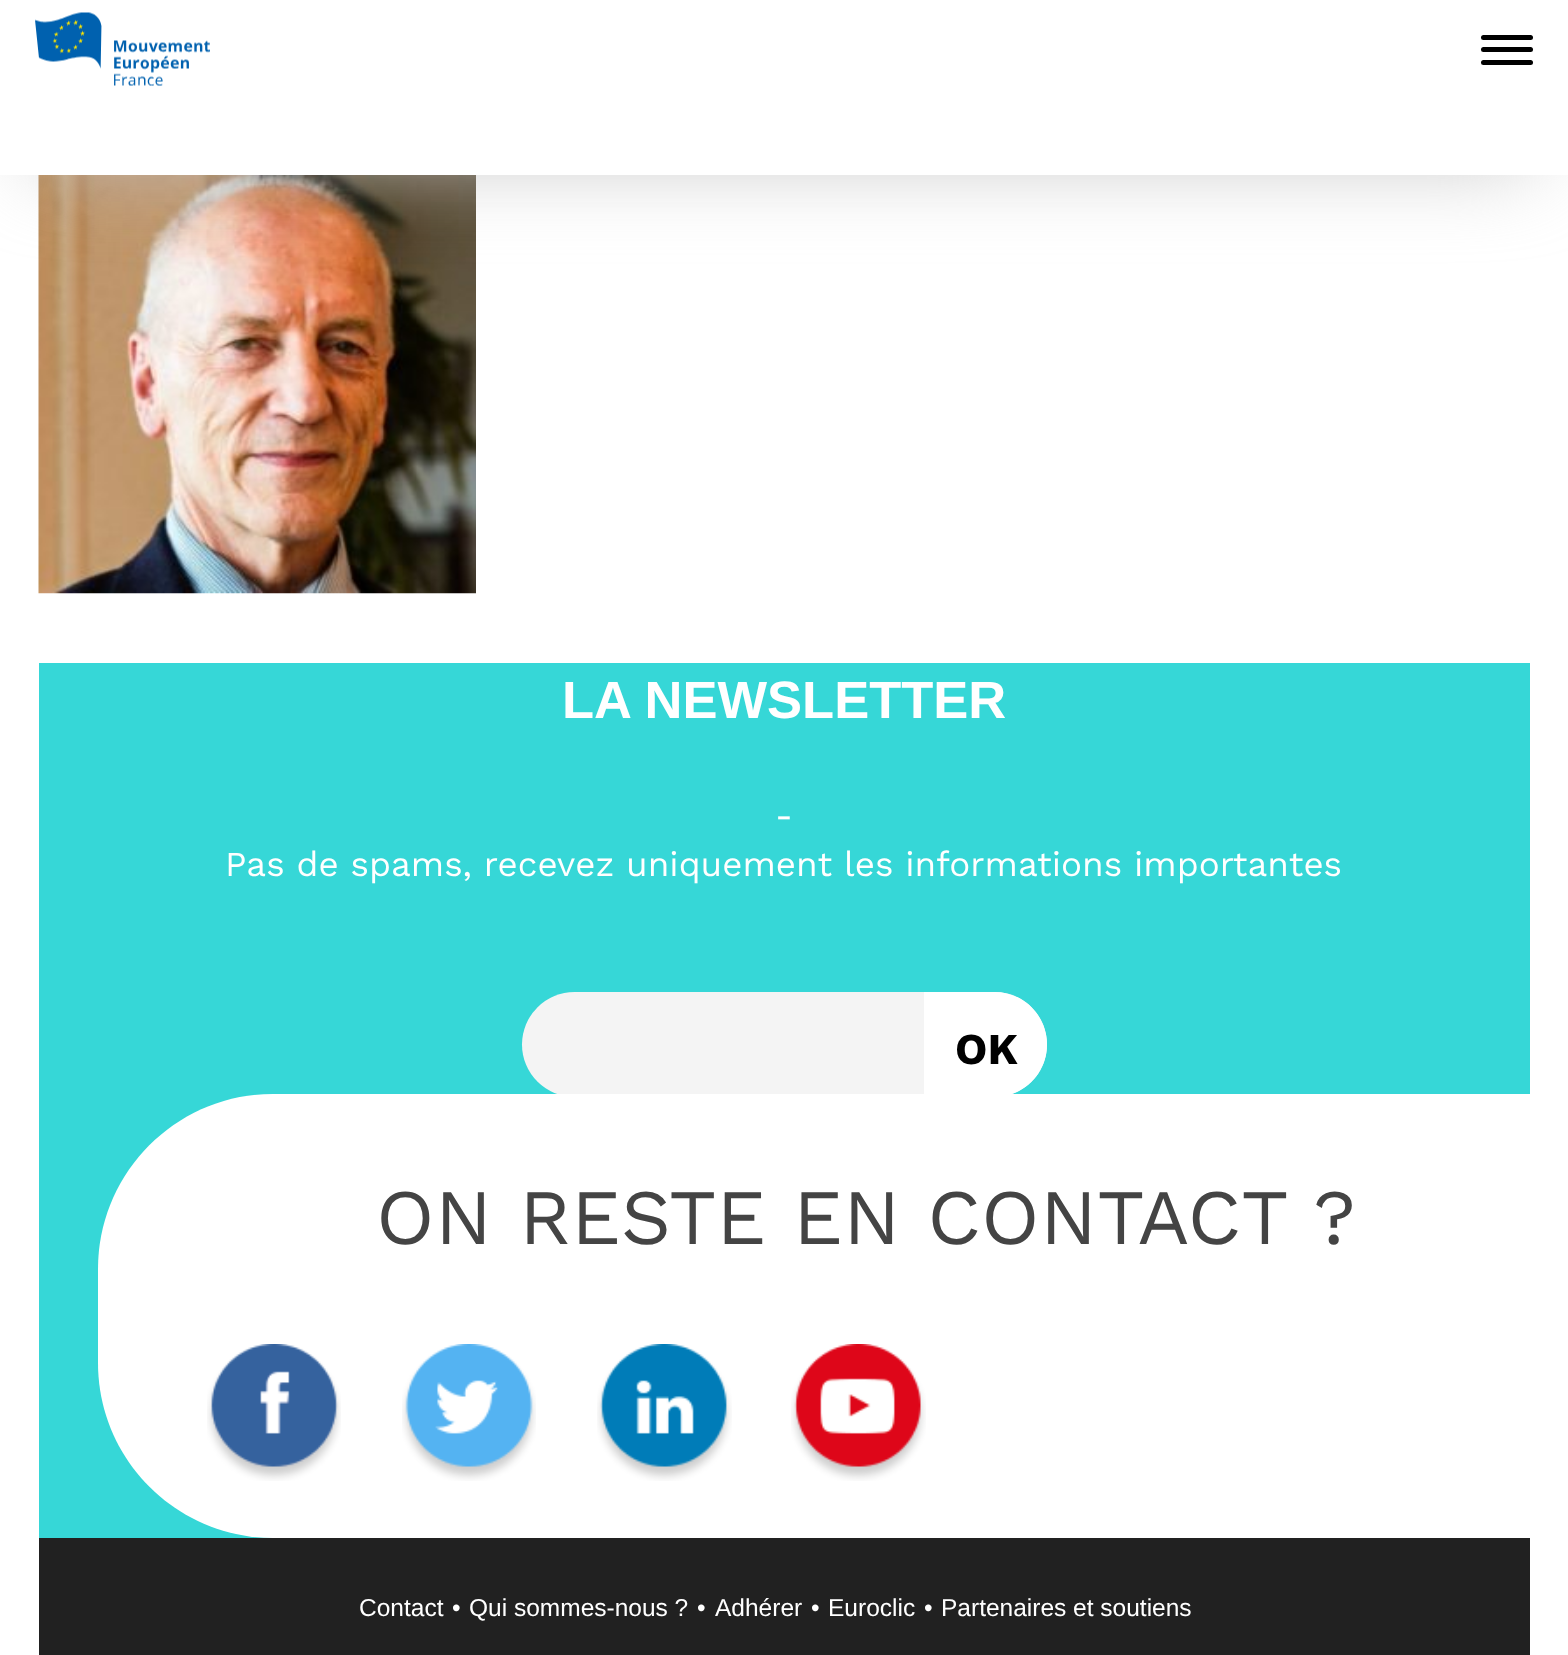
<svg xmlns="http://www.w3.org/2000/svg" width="1568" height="1655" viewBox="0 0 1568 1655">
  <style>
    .t1 { font: bold 52.5px Liberation Sans; fill: #fff; }
    .t2 { font: 35px Work Sans; fill: #fff; }
    .t3 { font: bold 44px Work Sans; fill: #000; }
    .t4 { font: 78.4px Work Sans; fill: #444; }
    .t5 { font: 24.5px Liberation Sans; fill: #fff; }
  </style>
  <rect width="100%" height="100%" fill="#fff"/>
  <image x="38" y="175" width="438" height="419" href="images/2.png"/>
  <rect x="35" y="53" width="1498" height="105" fill="#bfbfbf" filter="blur(44px)"/>
  <rect x="0" y="0" width="1568" height="175" fill="#fff"/>
  <image x="35" y="12" width="175" height="74" href="images/1.png"/>
  <rect x="1481" y="35" width="52" height="5" rx="2.5" fill="#000"/>
  <rect x="1481" y="47" width="52" height="5" rx="2.5" fill="#000"/>
  <rect x="1481" y="60" width="52" height="5" rx="2.5" fill="#000"/>
  <rect x="39" y="663" width="1491" height="875" fill="#36d7d7"/>
  <text x="562" y="718" class="t1">LA NEWSLETTER</text>
  <text x="775" y="827" class="t2">-</text>
  <text x="225" y="876" class="t2">Pas de spams, recevez uniquement les informations importantes</text>
  <rect x="522" y="992" width="525" height="105" rx="52.5" fill="#f4f4f4"/>
  <path d="M924 992H994.5C1023.5 992 1047 1015.5 1047 1044.5C1047 1073.5 1023.5 1097 994.5 1097H924Z" fill="#fff"/>
  <text x="955" y="1064" class="t3">OK</text>
  <path d="M273 1094H1530V1538H273C176.5 1538 98 1459.5 98 1363V1269C98 1172.5 176.5 1094 273 1094Z" fill="#fff"/>
  <text x="376" y="1244" class="t4">ON RESTE EN CONTACT ?</text>
  <image x="207" y="1344" width="134" height="137" href="images/3.png"/>
  <image x="402" y="1344" width="134" height="137" href="images/4.png"/>
  <image x="597" y="1344" width="135" height="137" href="images/5.png"/>
  <image x="791" y="1344" width="135" height="137" href="images/6.png"/>
  <rect x="39" y="1538" width="1491" height="117" fill="#212121"/>
  <text x="359" y="1616" class="t5">Contact</text>
  <text x="452" y="1616" class="t5">•</text>
  <text x="469" y="1616" class="t5">Qui sommes-nous ?</text>
  <text x="697" y="1616" class="t5">•</text>
  <text x="715" y="1616" class="t5">Adhérer</text>
  <text x="811" y="1616" class="t5">•</text>
  <text x="828" y="1616" class="t5">Euroclic</text>
  <text x="924" y="1616" class="t5">•</text>
  <text x="941" y="1616" class="t5">Partenaires et soutiens</text>
</svg>
